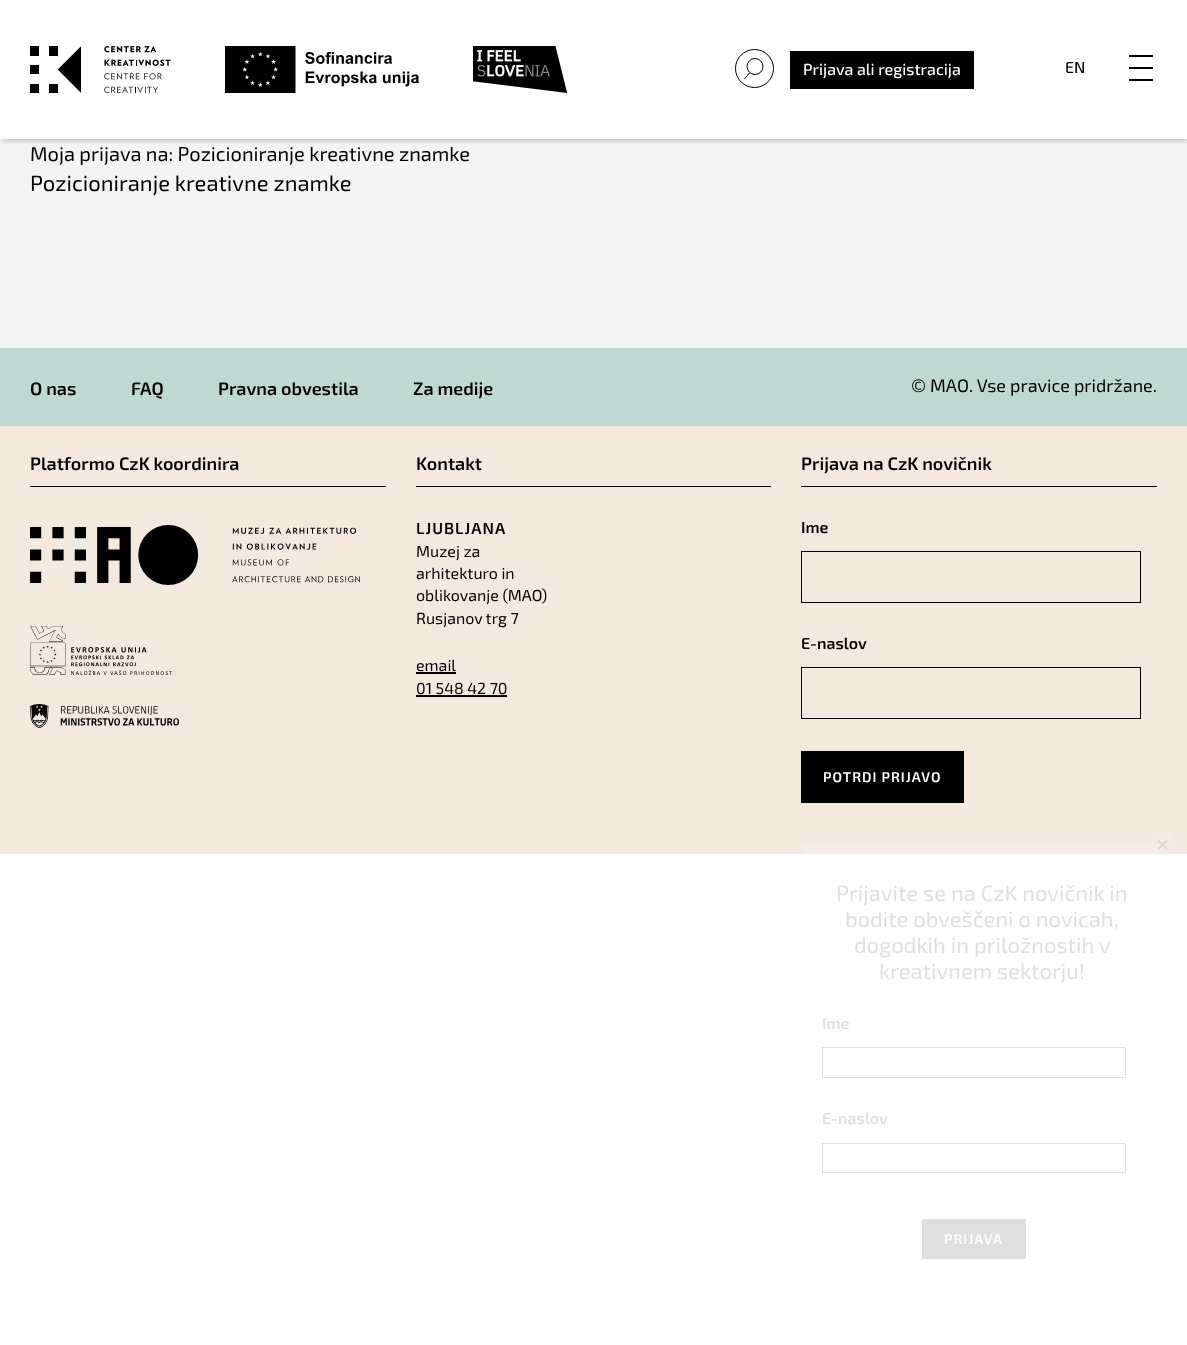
<svg xmlns="http://www.w3.org/2000/svg" width="1187" height="1345" viewBox="0 0 1187 1345">
  <style>
    .t1 { font: 500 16px 'Exo 2'; fill: #fff; }
    .t2 { font: 500 16px 'Exo 2'; fill: #000; }
    .t3 { font: 20px 'Exo 2'; fill: #000; }
    .t4 { font: 22px 'Exo 2'; fill: #000; }
    .t5 { font: 600 18px 'Exo 2'; fill: #000; }
    .t6 { font: 18px 'Exo 2'; fill: #000; }
    .t7 { font: 600 16px 'Exo 2'; letter-spacing: 1px; fill: #000; }
    .t8 { font: 16px 'Exo 2'; fill: #000; }
    .t9 { font: 600 16px 'Exo 2'; fill: #000; }
    .t10 { font: 600 14px 'Exo 2'; letter-spacing: 1px; fill: #fff; }
    .t11 { font: 22px Liberation Sans; fill: #dcd2c9; }
    .t12 { font: 22px 'Exo 2'; fill: #dfdfdf; }
    .t13 { font: 600 16px 'Exo 2'; fill: #dfdfdf; }
  </style>
  <defs>
    <clipPath id="clip1"><rect x="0" y="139" width="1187" height="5"/></clipPath>
  </defs>
  <rect width="100%" height="100%" fill="#fff"/>
  <rect x="0" y="139" width="1187" height="209" fill="#f4f4f4"/>
  <g clip-path="url(#clip1)">
    <rect x="2" y="2" width="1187" height="139" fill="#00000033" filter="blur(2.5px)"/>
  </g>
  <image x="30" y="46" width="141" height="47" href="images/1.png"/>
  <image x="225" y="46" width="194" height="47" href="images/2.png"/>
  <image x="473" y="46" width="94" height="47" href="images/3.png"/>
  <circle cx="754.5" cy="68.5" r="19" fill="none" stroke="#000"/>
  <circle cx="755" cy="66.5" r="8" fill="none" stroke="#000"/>
  <path d="M749.5 73L744.5 79" fill="none" stroke="#000"/>
  <rect x="790" y="51" width="184" height="38" fill="#000"/>
  <text x="803" y="75" class="t1">Prijava ali registracija</text>
  <text x="1065" y="73" class="t2">EN</text>
  <rect x="1129" y="67" width="24" height="2" fill="#000"/>
  <rect x="1129" y="55" width="24" height="2" fill="#000"/>
  <rect x="1129" y="79" width="24" height="2" fill="#000"/>
  <text x="30" y="161" class="t3">Moja prijava na: Pozicioniranje kreativne znamke</text>
  <text x="30" y="191" class="t4">Pozicioniranje kreativne znamke</text>
  <rect x="0" y="348" width="1187" height="78" fill="#bfd8d2"/>
  <text x="30" y="395" class="t5">O nas</text>
  <text x="131" y="395" class="t5">FAQ</text>
  <text x="218" y="395" class="t5">Pravna obvestila</text>
  <text x="413" y="395" class="t5">Za medije</text>
  <text x="911" y="392" class="t6">© MAO. Vse pravice pridržane.</text>
  <rect x="0" y="426" width="1187" height="428" fill="#f4e9df"/>
  <rect x="802" y="844" width="360" height="10" fill="#f5ece3"/>
  <rect x="30" y="486" width="356" height="1" fill="#000"/>
  <text x="30" y="470" class="t5">Platformo CzK koordinira</text>
  <image x="30" y="525" width="330" height="60" href="images/4.png"/>
  <image x="30" y="626" width="142" height="49" href="images/5.png"/>
  <image x="30" y="704" width="149" height="24" href="images/6.png"/>
  <rect x="416" y="486" width="355" height="1" fill="#000"/>
  <text x="416" y="470" class="t5">Kontakt</text>
  <text x="416" y="534" class="t7">LJUBLJANA</text>
  <text x="416" y="557" class="t8">Muzej za</text>
  <text x="416" y="579" class="t8">arhitekturo in</text>
  <text x="416" y="601" class="t8">oblikovanje (MAO)</text>
  <text x="416" y="624" class="t8">Rusjanov trg 7</text>
  <text x="416" y="671" class="t8">email</text>
  <rect x="416" y="672" width="40" height="2" fill="#000"/>
  <text x="416" y="694" class="t8">01 548 42 70</text>
  <rect x="416" y="695" width="91" height="2" fill="#000"/>
  <rect x="801" y="486" width="356" height="1" fill="#000"/>
  <text x="801" y="470" class="t5">Prijava na CzK novičnik</text>
  <text x="801" y="533" class="t9">Ime</text>
  <rect x="801.5" y="551.5" width="339" height="51" fill="none" stroke="#000"/>
  <text x="801" y="649" class="t9">E-naslov</text>
  <rect x="801.5" y="667.5" width="339" height="51" fill="none" stroke="#000"/>
  <rect x="801" y="751" width="163" height="52" fill="#000"/>
  <text x="823" y="782" class="t10">POTRDI PRIJAVO</text>
  <circle cx="1162" cy="844" r="13" fill="#ffffff21"/>
  <text x="1156" y="852" class="t11">×</text>
  <text x="836" y="901" class="t12">Prijavite se na CzK novičnik in</text>
  <text x="845" y="927" class="t12">bodite obveščeni o novicah,</text>
  <text x="854" y="953" class="t12">dogodkih in priložnostih v</text>
  <text x="879" y="979" class="t12">kreativnem sektorju!</text>
  <text x="822" y="1029" class="t13">Ime</text>
  <rect x="822.5" y="1047.5" width="303" height="30" fill="none" stroke="#dfdfdf"/>
  <text x="822" y="1124" class="t13">E-naslov</text>
  <rect x="822.5" y="1143.5" width="303" height="29" fill="none" stroke="#dfdfdf"/>
  <rect x="922" y="1219" width="104" height="40" fill="#dfdfdf"/>
  <text x="944" y="1244" class="t10">PRIJAVA</text>
</svg>
